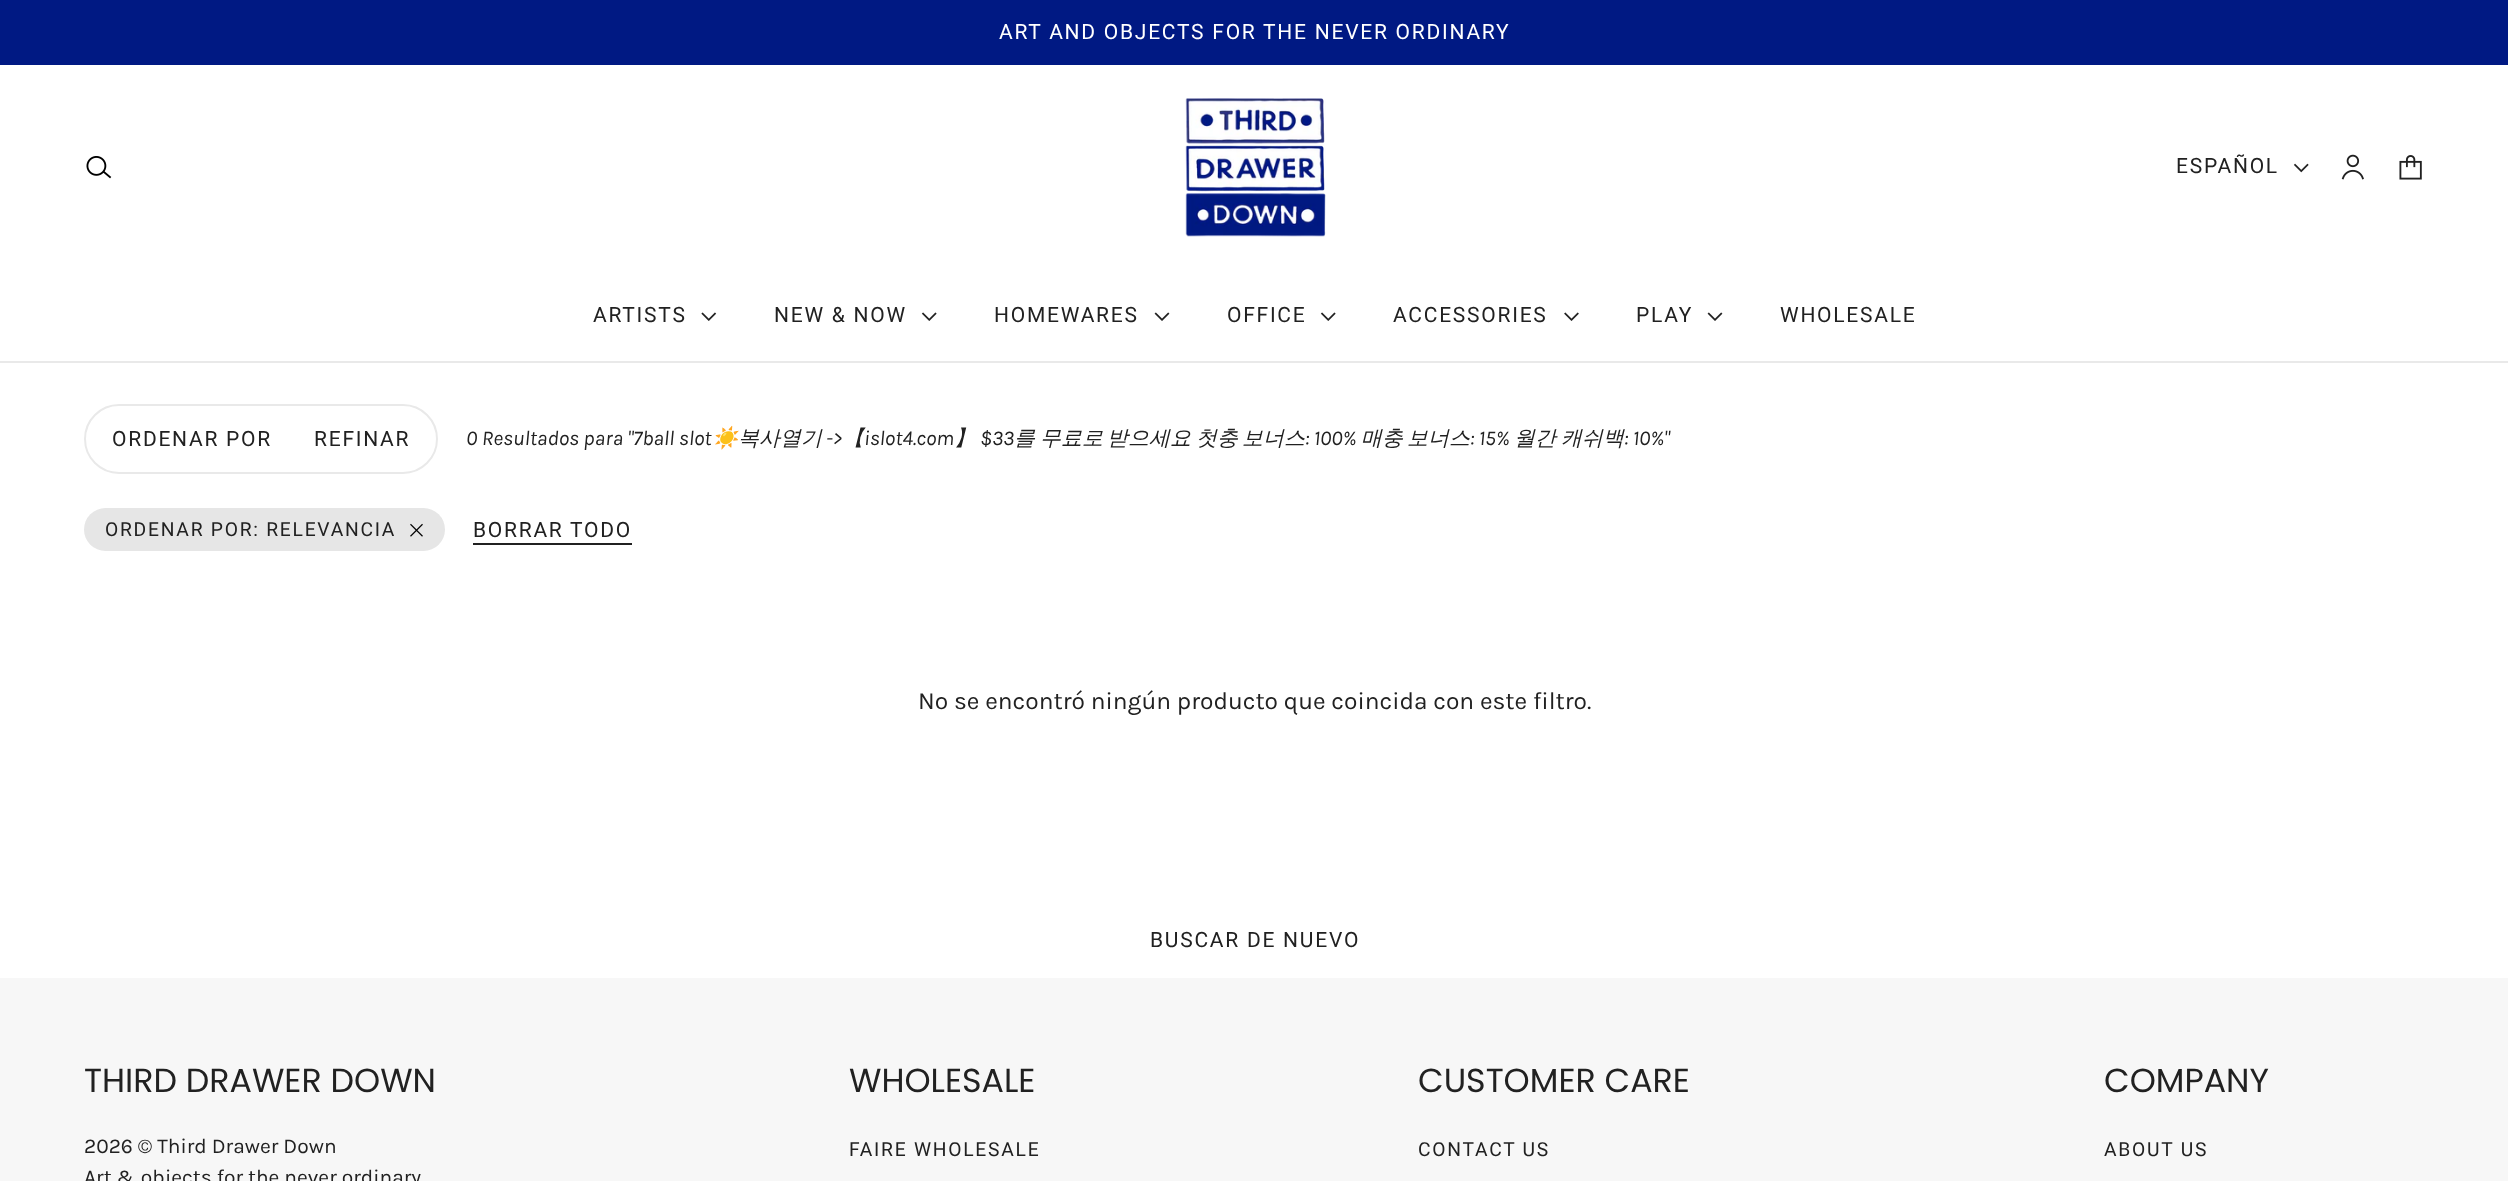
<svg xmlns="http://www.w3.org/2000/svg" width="2508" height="1181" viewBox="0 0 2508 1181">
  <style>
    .t1 { font: 21px Roboto; letter-spacing: 1.75px; fill: #fff; }
    .t2 { font: 21px Roboto; letter-spacing: 1.75px; fill: #212121; }
    .t3 { font: italic 21px Karla; fill: #212121; }
    .t4 { font: italic 21px Noto Color Emoji; fill: #212121; }
    .t5 { font: italic 500 21px WenQuanYi Zen Hei; fill: #212121; }
    .t6 { font: 19.25px Roboto; letter-spacing: 1.75px; fill: #212121; }
    .t7 { font: 24.5px Karla; fill: #212121; }
    .t8 { font: 33.25px Poppins; fill: #212121; }
    .t9 { font: 21px Karla; fill: #212121; }
  </style>
  <rect width="100%" height="100%" fill="#fff"/>
  <rect x="0" y="0" width="2508" height="65" fill="#001983"/>
  <text x="999" y="39" class="t1">ART AND OBJECTS FOR THE NEVER ORDINARY</text>
  <image x="86" y="156" width="26" height="23" href="images/1.png"/>
  <image x="1185" y="98" width="141" height="139" href="images/2.png"/>
  <text x="2176" y="173" class="t2">ESPAÑOL</text>
  <image x="2293" y="163" width="16" height="10" href="images/3.png"/>
  <image x="2341" y="154" width="23" height="26" href="images/4.png"/>
  <image x="2399" y="155" width="23" height="25" href="images/5.png"/>
  <text x="593" y="322" class="t2">ARTISTS</text>
  <image x="701" y="312" width="16" height="9" href="images/6.png"/>
  <text x="774" y="322" class="t2">NEW &amp; NOW</text>
  <image x="921" y="312" width="16" height="9" href="images/7.png"/>
  <text x="994" y="322" class="t2">HOMEWARES</text>
  <image x="1154" y="312" width="16" height="9" href="images/8.png"/>
  <text x="1227" y="322" class="t2">OFFICE</text>
  <image x="1320" y="312" width="16" height="9" href="images/7.png"/>
  <text x="1393" y="322" class="t2">ACCESSORIES</text>
  <image x="1564" y="312" width="15" height="9" href="images/9.png"/>
  <text x="1636" y="322" class="t2">PLAY</text>
  <image x="1707" y="312" width="16" height="9" href="images/8.png"/>
  <text x="1780" y="322" class="t2">WHOLESALE</text>
  <rect x="0" y="361" width="2508" height="2" fill="#e9e9e9"/>
  <rect x="85" y="405" width="352" height="68" rx="34" fill="none" stroke="#e9e9e9" stroke-width="2"/>
  <text x="112" y="446" class="t2">ORDENAR POR</text>
  <text x="314" y="446" class="t2">REFINAR</text>
  <text x="466" y="445" class="t3">0 Resultados para "7ball slot</text>
  <text x="712" y="445" class="t4">☀️</text>
  <text x="738" y="445" class="t5">복사열기</text>
  <text x="826" y="445" class="t3">-&gt;</text>
  <text x="843" y="445" class="t5">【</text>
  <text x="864" y="445" class="t3">islot4.com</text>
  <text x="954" y="445" class="t5">】</text>
  <text x="980" y="445" class="t3">$33</text>
  <text x="1014" y="445" class="t5">를</text>
  <text x="1040" y="445" class="t5">무료로</text>
  <text x="1107" y="445" class="t5">받으세요</text>
  <text x="1196" y="445" class="t5">첫충</text>
  <text x="1242" y="445" class="t5">보너스</text>
  <text x="1305" y="445" class="t3">: 100%</text>
  <text x="1361" y="445" class="t5">매충</text>
  <text x="1407" y="445" class="t5">보너스</text>
  <text x="1470" y="445" class="t3">: 15%</text>
  <text x="1514" y="445" class="t5">월간</text>
  <text x="1561" y="445" class="t5">캐쉬백</text>
  <text x="1624" y="445" class="t3">: 10%"</text>
  <rect x="84" y="508" width="361" height="43" rx="21.5" fill="#e6e6e6"/>
  <text x="105" y="536" class="t6">ORDENAR POR: RELEVANCIA</text>
  <image x="410" y="523" width="13" height="14" href="images/10.png"/>
  <text x="473" y="537" class="t2">BORRAR TODO</text>
  <rect x="473" y="543" width="159" height="2" fill="#212121"/>
  <text x="918" y="709" class="t7">No se encontró ningún producto que coincida con este filtro.</text>
  <text x="1150" y="947" class="t2">BUSCAR DE NUEVO</text>
  <rect x="0" y="978" width="2508" height="203" fill="#f7f7f7"/>
  <text x="84" y="1092" class="t8">THIRD DRAWER DOWN</text>
  <text x="84" y="1153" class="t9">2026 © Third Drawer Down</text>
  <text x="84" y="1184" class="t9">Art &amp; objects for the never ordinary</text>
  <text x="849" y="1092" class="t8">WHOLESALE</text>
  <text x="849" y="1156" class="t6">FAIRE WHOLESALE</text>
  <text x="1418" y="1092" class="t8">CUSTOMER CARE</text>
  <text x="1418" y="1156" class="t6">CONTACT US</text>
  <text x="2104" y="1092" class="t8">COMPANY</text>
  <text x="2104" y="1156" class="t6">ABOUT US</text>
</svg>
